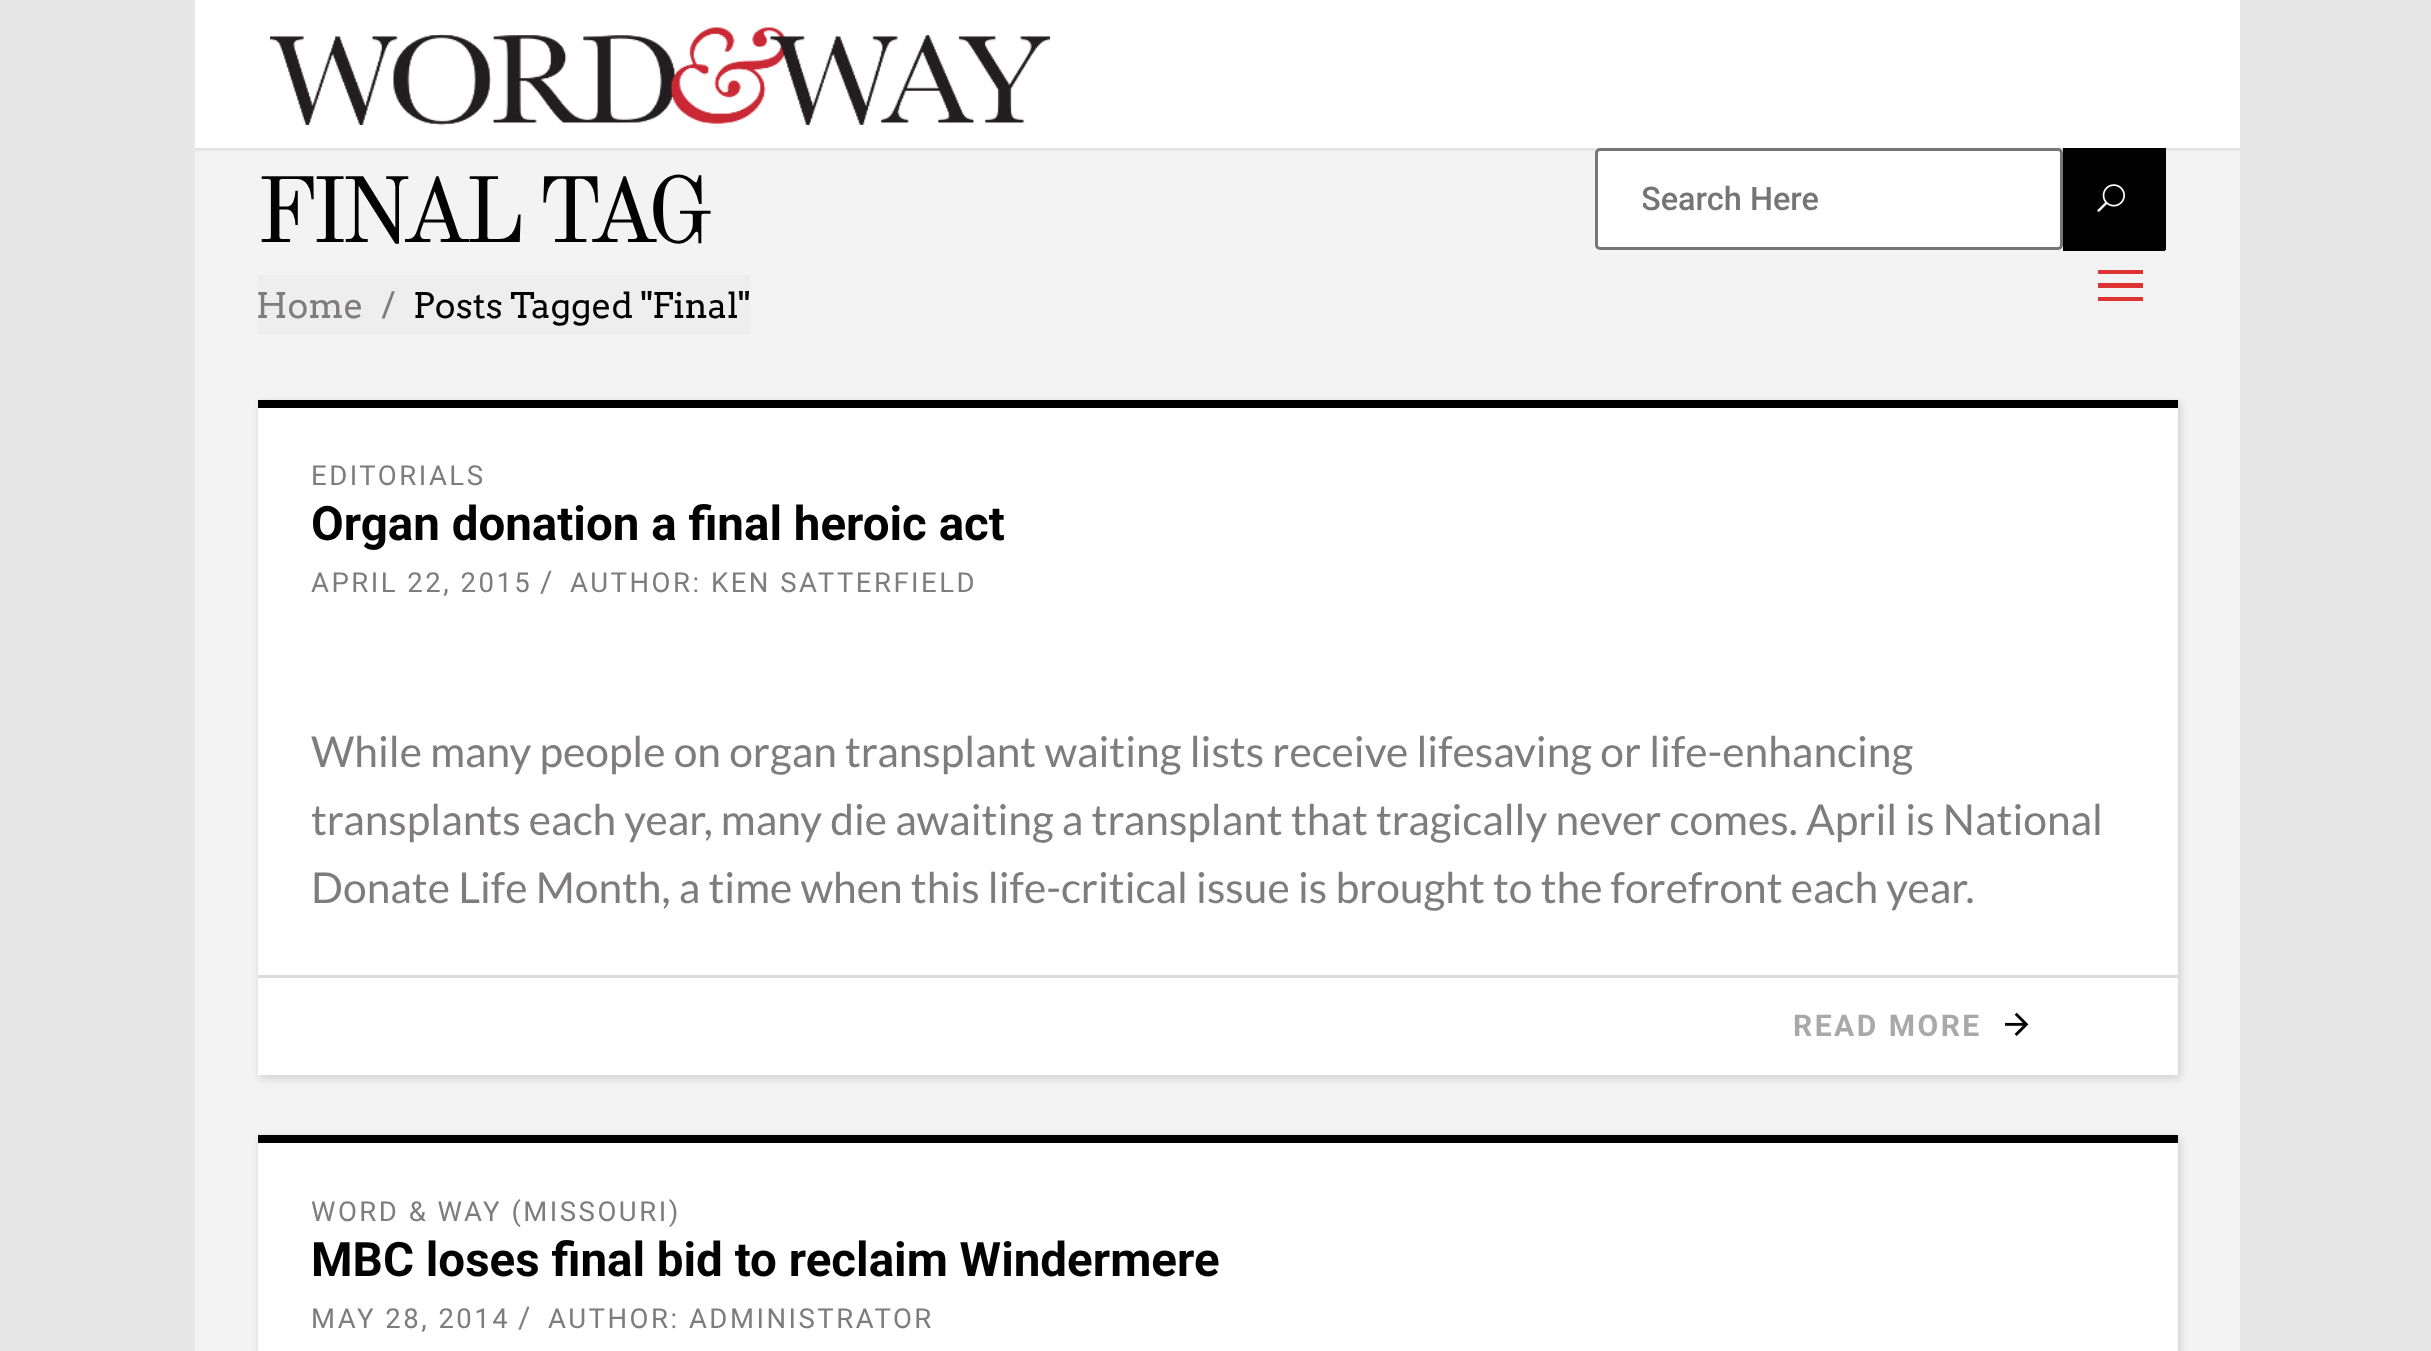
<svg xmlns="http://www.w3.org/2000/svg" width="2431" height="1351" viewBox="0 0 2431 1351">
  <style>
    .t1 { font: 92.5px Old Standard TT; letter-spacing: -7.5px; fill: #020202; }
    .t2 { font: 35px Arvo; fill: #7e7c7c; }
    .t3 { font: 35px Arvo; fill: #020202; }
    .t4 { font: 27.5px Roboto; letter-spacing: 2.5px; fill: #7e7c7c; }
    .t5 { font: bold 47.5px Roboto; fill: #020202; }
    .t6 { font: 30px Roboto; letter-spacing: 2.5px; fill: #7e7c7c; }
    .t7 { font: 42.5px Lato; fill: #7e7c7c; }
    .t8 { font: bold 30px Roboto; letter-spacing: 2.5px; fill: #a9a9a9; }
    .t9 { font: 500 32.5px Roboto; fill: #757575; }
  </style>
  <defs>
    <clipPath id="clip1"><rect x="1643" y="180" width="377" height="38"/></clipPath>
  </defs>
  <rect width="100%" height="100%" fill="#e8e7e7"/>
  <rect x="195" y="151" width="2045" height="1200" fill="#f3f3f3"/>
  <text x="256" y="242" class="t1">FINAL TAG</text>
  <rect x="258" y="275" width="492" height="60" fill="#eee"/>
  <text x="256" y="318" class="t2">Home</text>
  <text x="381" y="318" class="t2">/</text>
  <text x="413" y="318" class="t3">Posts Tagged "Final"</text>
  <rect x="260" y="403" width="1920" height="675" fill="#cecccc" filter="blur(4px)"/>
  <rect x="258" y="408" width="1920" height="667" fill="#fff"/>
  <rect x="258" y="400" width="1920" height="8" fill="#000"/>
  <text x="311" y="485" class="t4">EDITORIALS</text>
  <text x="311" y="540" class="t5">Organ donation a final heroic act</text>
  <text x="311" y="592" class="t4">APRIL 22, 2015</text>
  <text x="540" y="592" class="t6">/</text>
  <text x="570" y="592" class="t4">AUTHOR: KEN SATTERFIELD</text>
  <text x="311" y="767" class="t7">While many people on organ transplant waiting lists receive lifesaving or life-enhancing</text>
  <text x="311" y="835" class="t7">transplants each year, many die awaiting a transplant that tragically never comes. April is National</text>
  <text x="311" y="903" class="t7">Donate Life Month, a time when this life-critical issue is brought to the forefront each year.</text>
  <rect x="258" y="975" width="1920" height="3" fill="#dddcdc"/>
  <text x="1793" y="1036" class="t8">READ MORE</text>
  <image x="2005" y="1012" width="24" height="24" href="images/1.png"/>
  <rect x="260" y="1138" width="1920" height="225" fill="#cecccc" filter="blur(4px)"/>
  <rect x="258" y="1143" width="1920" height="208" fill="#fff"/>
  <rect x="258" y="1135" width="1920" height="8" fill="#000"/>
  <text x="311" y="1221" class="t4">WORD &amp; WAY (MISSOURI)</text>
  <text x="311" y="1276" class="t5">MBC loses final bid to reclaim Windermere</text>
  <text x="311" y="1328" class="t4">MAY 28, 2014</text>
  <text x="518" y="1328" class="t6">/</text>
  <text x="548" y="1328" class="t4">AUTHOR: ADMINISTRATOR</text>
  <rect x="195" y="0" width="2045" height="148" fill="#fff"/>
  <rect x="195" y="148" width="2045" height="3" fill="#e4e4e4"/>
  <image x="270" y="27" width="780" height="98" href="images/2.png"/>
  <rect x="1596.5" y="149.5" width="465" height="99" rx="3.5" fill="#fff" stroke="#767676" stroke-width="3"/>
  <g clip-path="url(#clip1)">
    <text x="1641" y="210" class="t9">Search Here</text>
  </g>
  <rect x="2063" y="148" width="100" height="100" fill="#020202"/>
  <rect x="2163" y="148" width="3" height="102" fill="#020202"/>
  <rect x="2063" y="248" width="102" height="3" fill="#020202"/>
  <image x="2097" y="184" width="28" height="28" href="images/3.png"/>
  <path d="M2098 288V283H2143V288ZM2098 274V270H2143V274ZM2098 301V297H2143V301Z" fill="#d33"/>
</svg>
